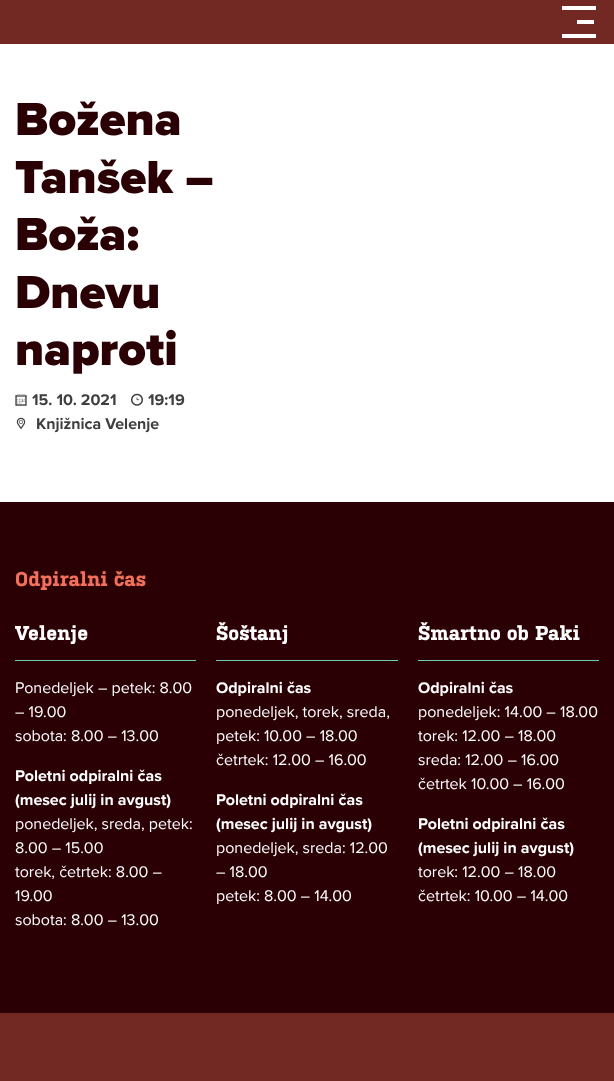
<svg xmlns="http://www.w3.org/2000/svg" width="614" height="1081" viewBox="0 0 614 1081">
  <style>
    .t1 { font: 900 48px Proxima Nova; fill: #2b0005; }
    .t2 { font: bold 16px Proxima Nova; fill: #3f3f3f; }
    .t3 { font: bold 20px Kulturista; fill: #f3705a; }
    .t4 { font: bold 20px Kulturista; fill: #fff; }
    .t5 { font: 16px Proxima Nova; fill: #fff; }
    .t6 { font: bold 16px Proxima Nova; fill: #fff; }
  </style>
  <rect width="100%" height="100%" fill="#fff"/>
  <rect x="0" y="0" width="614" height="44" fill="#722923"/>
  <rect x="577" y="20" width="17" height="4" fill="#fff"/>
  <rect x="562" y="6" width="34" height="4" fill="#fff"/>
  <rect x="562" y="34" width="34" height="4" fill="#fff"/>
  <text x="15" y="135" class="t1">Božena</text>
  <text x="15" y="193" class="t1">Tanšek –</text>
  <text x="15" y="250" class="t1">Boža:</text>
  <text x="15" y="308" class="t1">Dnevu</text>
  <text x="15" y="365" class="t1">naproti</text>
  <image x="15" y="394" width="12" height="12" href="images/1.png"/>
  <text x="32" y="405" class="t2">15. 10. 2021</text>
  <image x="131" y="393" width="12" height="13" href="images/2.png"/>
  <text x="148" y="405" class="t2">19:19</text>
  <image x="16" y="417" width="10" height="13" href="images/3.png"/>
  <text x="36" y="429" class="t2">Knjižnica Velenje</text>
  <rect x="0" y="502" width="614" height="511" fill="#2b0005"/>
  <text x="15" y="586" class="t3">Odpiralni čas</text>
  <rect x="15" y="660" width="181" height="1" fill="#6fc7b6"/>
  <text x="15" y="640" class="t4">Velenje</text>
  <text x="15" y="693" class="t5">Ponedeljek – petek: 8.00</text>
  <text x="15" y="717" class="t5">– 19.00</text>
  <text x="15" y="741" class="t5">sobota: 8.00 – 13.00</text>
  <text x="15" y="781" class="t6">Poletni odpiralni čas</text>
  <text x="15" y="805" class="t6">(mesec julij in avgust)</text>
  <text x="15" y="829" class="t5">ponedeljek, sreda, petek:</text>
  <text x="15" y="853" class="t5">8.00 – 15.00</text>
  <text x="15" y="877" class="t5">torek, četrtek: 8.00 –</text>
  <text x="15" y="901" class="t5">19.00</text>
  <text x="15" y="925" class="t5">sobota: 8.00 – 13.00</text>
  <rect x="216" y="660" width="182" height="1" fill="#6fc7b6"/>
  <text x="216" y="640" class="t4">Šoštanj</text>
  <text x="216" y="693" class="t6">Odpiralni čas</text>
  <text x="216" y="717" class="t5">ponedeljek, torek, sreda,</text>
  <text x="216" y="741" class="t5">petek: 10.00 – 18.00</text>
  <text x="216" y="765" class="t5">četrtek: 12.00 – 16.00</text>
  <text x="216" y="805" class="t6">Poletni odpiralni čas</text>
  <text x="216" y="829" class="t6">(mesec julij in avgust)</text>
  <text x="216" y="853" class="t5">ponedeljek, sreda: 12.00</text>
  <text x="216" y="877" class="t5">– 18.00</text>
  <text x="216" y="901" class="t5">petek: 8.00 – 14.00</text>
  <rect x="418" y="660" width="181" height="1" fill="#6fc7b6"/>
  <text x="418" y="640" class="t4">Šmartno ob Paki</text>
  <text x="418" y="693" class="t6">Odpiralni čas</text>
  <text x="418" y="717" class="t5">ponedeljek: 14.00 – 18.00</text>
  <text x="418" y="741" class="t5">torek: 12.00 – 18.00</text>
  <text x="418" y="765" class="t5">sreda: 12.00 – 16.00</text>
  <text x="418" y="789" class="t5">četrtek 10.00 – 16.00</text>
  <text x="418" y="829" class="t6">Poletni odpiralni čas</text>
  <text x="418" y="853" class="t6">(mesec julij in avgust)</text>
  <text x="418" y="877" class="t5">torek: 12.00 – 18.00</text>
  <text x="418" y="901" class="t5">četrtek: 10.00 – 14.00</text>
  <rect x="0" y="1013" width="614" height="68" fill="#722923"/>
</svg>
